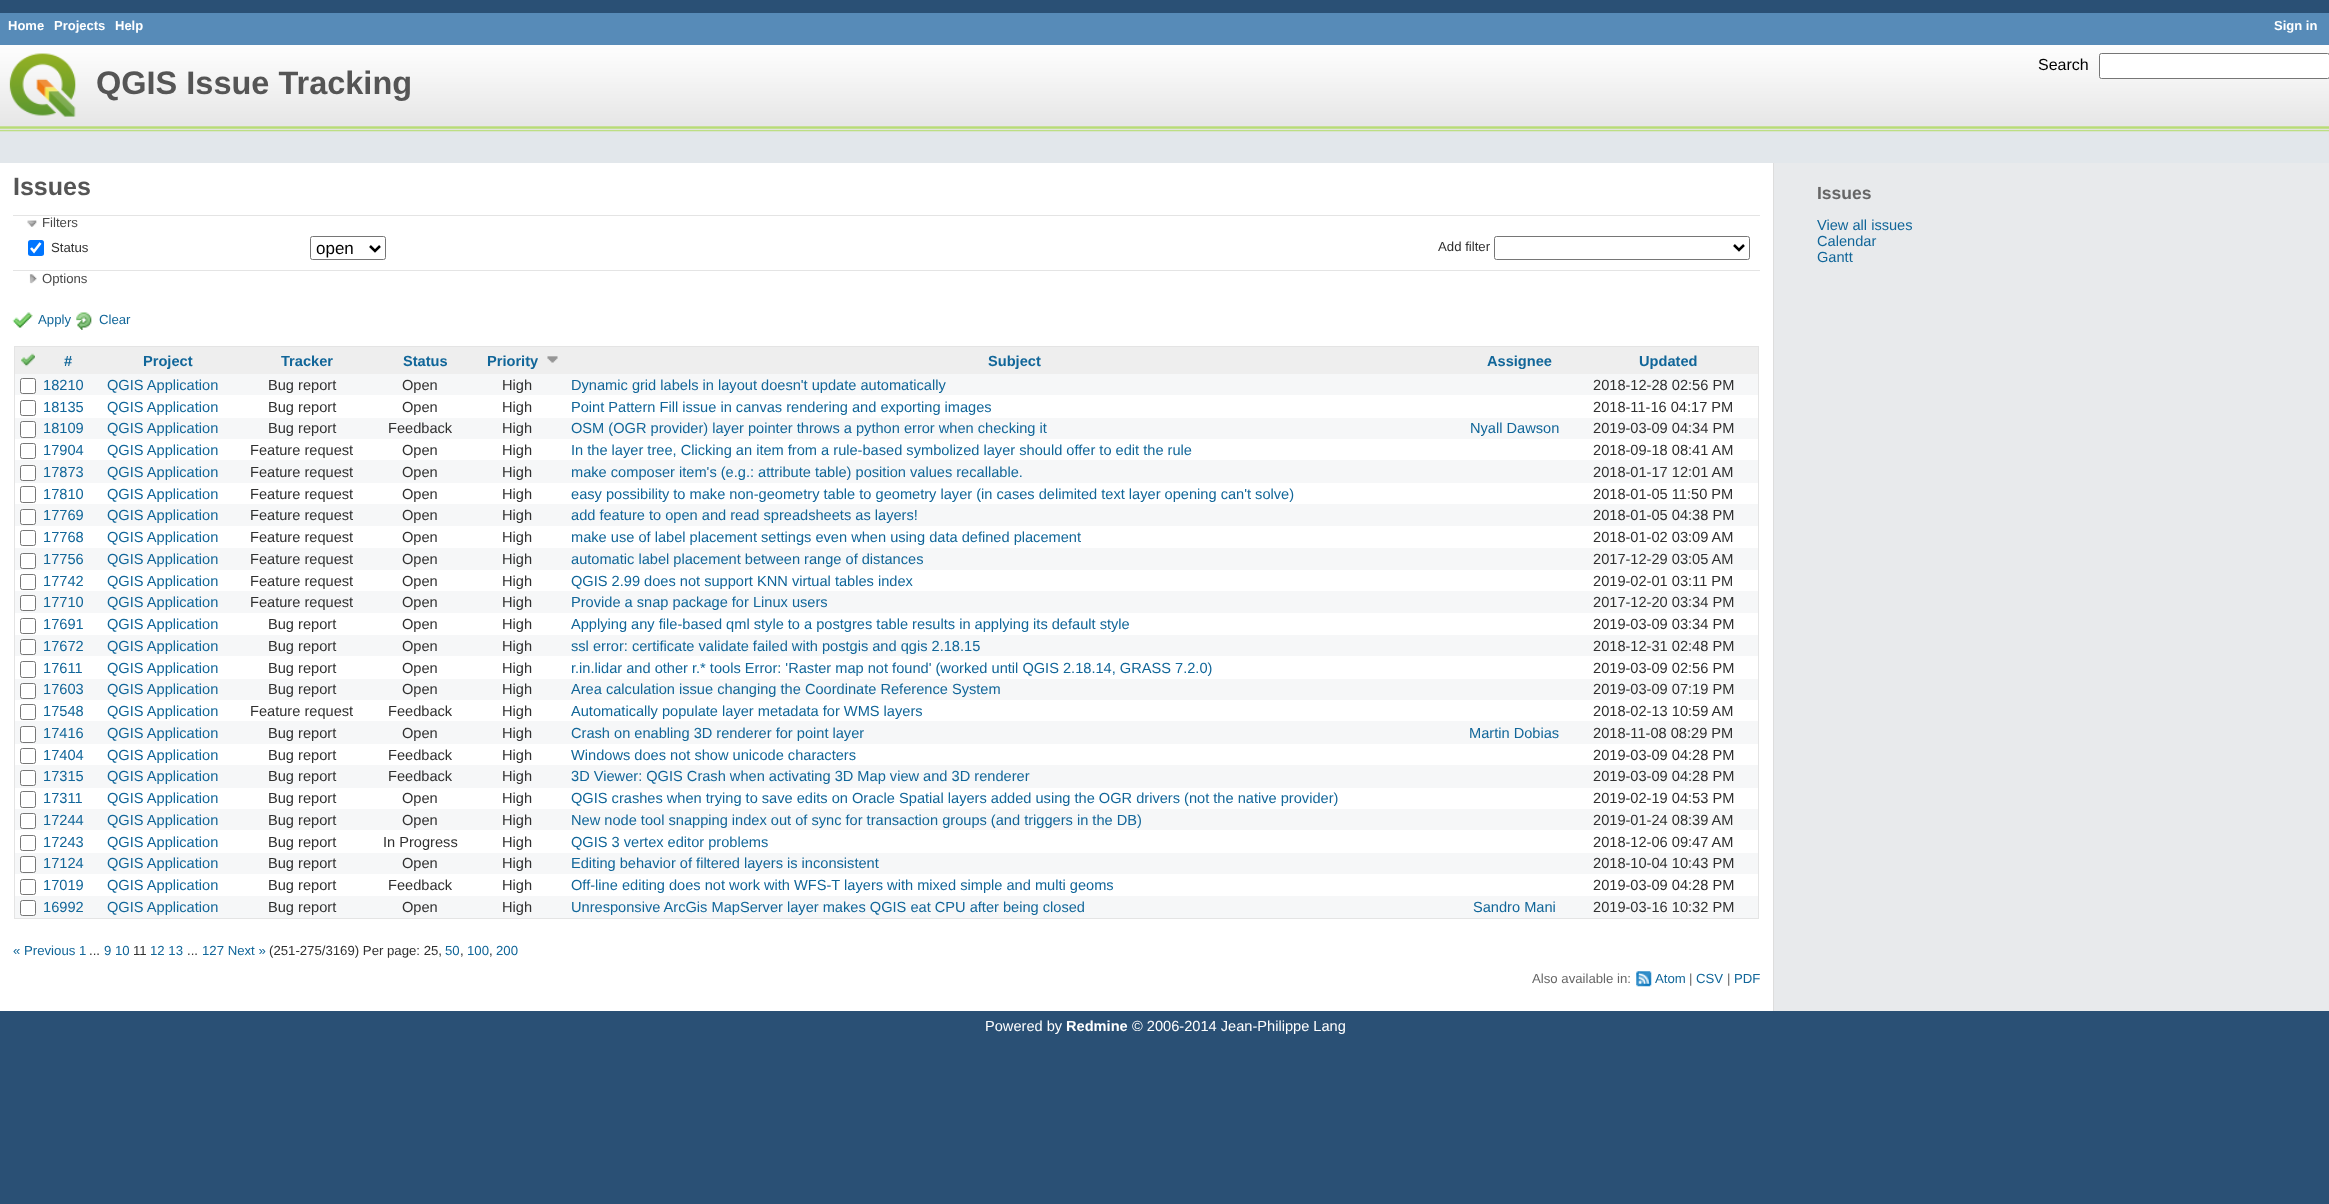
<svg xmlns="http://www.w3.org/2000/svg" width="2329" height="1204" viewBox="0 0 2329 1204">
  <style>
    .t1 { font: bold 13px Liberation Sans; fill: #fff; }
    .t2 { font: 16px Liberation Sans; fill: #000; }
    .t3 { font: bold 32.5px Liberation Sans; fill: #555; }
    .t4 { font: bold 25px Liberation Sans; fill: #555; }
    .t5 { font: 13.2px Liberation Sans; fill: #484848; }
    .t6 { font: 13.2px Liberation Sans; fill: #303030; }
    .t7 { font: 17px Liberation Sans; fill: #000; }
    .t8 { font: 13.2px Liberation Sans; fill: #169; }
    .t9 { font: bold 14.62px Liberation Sans; fill: #169; }
    .t10 { font: 14.62px Liberation Sans; fill: #169; }
    .t11 { font: 14.62px Liberation Sans; fill: #303030; }
    .t12 { font: 13.2px Liberation Sans; fill: #666; }
    .t13 { font: bold 17.5px Liberation Sans; fill: #666; }
    .t14 { font: 14.62px Liberation Sans; fill: #fff; }
    .t15 { font: bold 14.62px Liberation Sans; fill: #fff; }
  </style>
  <rect width="100%" height="100%" fill="#2a5075"/>
  <rect x="0" y="13" width="2329" height="32" fill="#578bb8"/>
  <text x="8" y="30" class="t1">Home</text>
  <text x="54" y="30" class="t1">Projects</text>
  <text x="115" y="30" class="t1">Help</text>
  <text x="2274" y="30" class="t1">Sign in</text>
  <rect x="0" y="131" width="2329" height="32" fill="#e2e7eb"/>
  <image x="0" y="45" width="2329" height="87" href="images/1.png"/>
  <text x="2038" y="70" class="t2">Search</text>
  <rect x="2099.5" y="53.5" width="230" height="25" rx="2" fill="#fff" stroke="#767676"/>
  <image x="9" y="53" width="67" height="64" href="images/2.png"/>
  <text x="96" y="94" class="t3">QGIS Issue Tracking</text>
  <rect x="1774" y="163" width="555" height="848" fill="#e8eaec"/>
  <rect x="0" y="163" width="1773" height="848" fill="#fff"/>
  <rect x="1773" y="163" width="1" height="848" fill="#ddd"/>
  <text x="13" y="195" class="t4">Issues</text>
  <rect x="13" y="215" width="1747" height="1" fill="#e4e4e4"/>
  <image x="27" y="220" width="10" height="7" href="images/3.png"/>
  <text x="42" y="227" class="t5">Filters</text>
  <rect x="28" y="240" width="16" height="16" rx="2.5" fill="#0075ff"/>
  <path d="M31 248L34 251.5L40.5 243" fill="none" stroke="#fff" stroke-width="2.6"/>
  <text x="51" y="252" class="t6">Status</text>
  <rect x="310.5" y="236.5" width="75" height="23" rx="2" fill="none" stroke="#767676"/>
  <path d="M370 246L375 251L380 246" fill="none" stroke="#000" stroke-width="2.5"/>
  <text x="316" y="254" class="t7">open</text>
  <text x="1438" y="251" class="t6">Add filter</text>
  <rect x="1494.5" y="236.5" width="255" height="23" rx="2" fill="none" stroke="#767676"/>
  <path d="M1734 245L1739 250L1744 245" fill="none" stroke="#000" stroke-width="2.5"/>
  <rect x="13" y="270" width="1747" height="1" fill="#e4e4e4"/>
  <image x="29" y="274" width="8" height="10" href="images/4.png"/>
  <text x="42" y="283" class="t5">Options</text>
  <image x="12" y="312" width="21" height="16" href="images/5.png"/>
  <text x="38" y="324" class="t8">Apply</text>
  <image x="76" y="312" width="16" height="18" href="images/6.png"/>
  <text x="99" y="324" class="t8">Clear</text>
  <rect x="14" y="346" width="1745" height="1" fill="#e4e4e4"/>
  <rect x="1758" y="346" width="1" height="573" fill="#e4e4e4"/>
  <rect x="14" y="918" width="1745" height="1" fill="#e4e4e4"/>
  <rect x="14" y="346" width="1" height="573" fill="#e4e4e4"/>
  <rect x="15" y="347" width="1743" height="27" fill="#eee"/>
  <image x="21" y="353" width="14" height="14" href="images/7.png"/>
  <text x="64" y="366" class="t9">#</text>
  <text x="143" y="366" class="t9">Project</text>
  <text x="281" y="366" class="t9">Tracker</text>
  <text x="403" y="366" class="t9">Status</text>
  <text x="487" y="366" class="t9">Priority</text>
  <image x="547" y="356" width="11" height="7" href="images/8.png"/>
  <text x="988" y="366" class="t9">Subject</text>
  <text x="1487" y="366" class="t9">Assignee</text>
  <text x="1639" y="366" class="t9">Updated</text>
  <rect x="15" y="374" width="1743" height="21" fill="#f6f7f8"/>
  <rect x="20.5" y="378.5" width="15" height="15" rx="2" fill="#fff" stroke="#767676"/>
  <text x="43" y="390" class="t10">18210</text>
  <text x="107" y="390" class="t10">QGIS Application</text>
  <text x="268" y="390" class="t11">Bug report</text>
  <text x="402" y="390" class="t11">Open</text>
  <text x="502" y="390" class="t11">High</text>
  <text x="571" y="390" class="t10">Dynamic grid labels in layout doesn't update automatically</text>
  <text x="1593" y="390" class="t11">2018-12-28 02:56 PM</text>
  <rect x="20.5" y="400.5" width="15" height="15" rx="2" fill="none" stroke="#767676"/>
  <text x="43" y="412" class="t10">18135</text>
  <text x="107" y="412" class="t10">QGIS Application</text>
  <text x="268" y="412" class="t11">Bug report</text>
  <text x="402" y="412" class="t11">Open</text>
  <text x="502" y="412" class="t11">High</text>
  <text x="571" y="412" class="t10">Point Pattern Fill issue in canvas rendering and exporting images</text>
  <text x="1593" y="412" class="t11">2018-11-16 04:17 PM</text>
  <rect x="15" y="418" width="1743" height="21" fill="#f6f7f8"/>
  <rect x="20.5" y="421.5" width="15" height="16" rx="2" fill="#fff" stroke="#767676"/>
  <text x="43" y="433" class="t10">18109</text>
  <text x="107" y="433" class="t10">QGIS Application</text>
  <text x="268" y="433" class="t11">Bug report</text>
  <text x="388" y="433" class="t11">Feedback</text>
  <text x="502" y="433" class="t11">High</text>
  <text x="571" y="433" class="t10">OSM (OGR provider) layer pointer throws a python error when checking it</text>
  <text x="1470" y="433" class="t10">Nyall Dawson</text>
  <text x="1593" y="433" class="t11">2019-03-09 04:34 PM</text>
  <rect x="20.5" y="443.5" width="15" height="15" rx="2" fill="none" stroke="#767676"/>
  <text x="43" y="455" class="t10">17904</text>
  <text x="107" y="455" class="t10">QGIS Application</text>
  <text x="250" y="455" class="t11">Feature request</text>
  <text x="402" y="455" class="t11">Open</text>
  <text x="502" y="455" class="t11">High</text>
  <text x="571" y="455" class="t10">In the layer tree, Clicking an item from a rule-based symbolized layer should offer to edit the rule</text>
  <text x="1593" y="455" class="t11">2018-09-18 08:41 AM</text>
  <rect x="15" y="460" width="1743" height="23" fill="#f6f7f8"/>
  <rect x="20.5" y="465.5" width="15" height="15" rx="2" fill="#fff" stroke="#767676"/>
  <text x="43" y="477" class="t10">17873</text>
  <text x="107" y="477" class="t10">QGIS Application</text>
  <text x="250" y="477" class="t11">Feature request</text>
  <text x="402" y="477" class="t11">Open</text>
  <text x="502" y="477" class="t11">High</text>
  <text x="571" y="477" class="t10">make composer item's (e.g.: attribute table) position values recallable.</text>
  <text x="1593" y="477" class="t11">2018-01-17 12:01 AM</text>
  <rect x="20.5" y="486.5" width="15" height="16" rx="2" fill="none" stroke="#767676"/>
  <text x="43" y="499" class="t10">17810</text>
  <text x="107" y="499" class="t10">QGIS Application</text>
  <text x="250" y="499" class="t11">Feature request</text>
  <text x="402" y="499" class="t11">Open</text>
  <text x="502" y="499" class="t11">High</text>
  <text x="571" y="499" class="t10">easy possibility to make non-geometry table to geometry layer (in cases delimited text layer opening can't solve)</text>
  <text x="1593" y="499" class="t11">2018-01-05 11:50 PM</text>
  <rect x="15" y="504" width="1743" height="22" fill="#f6f7f8"/>
  <rect x="20.5" y="509.5" width="15" height="15" rx="2" fill="#fff" stroke="#767676"/>
  <text x="43" y="520" class="t10">17769</text>
  <text x="107" y="520" class="t10">QGIS Application</text>
  <text x="250" y="520" class="t11">Feature request</text>
  <text x="402" y="520" class="t11">Open</text>
  <text x="502" y="520" class="t11">High</text>
  <text x="571" y="520" class="t10">add feature to open and read spreadsheets as layers!</text>
  <text x="1593" y="520" class="t11">2018-01-05 04:38 PM</text>
  <rect x="20.5" y="530.5" width="15" height="15" rx="2" fill="none" stroke="#767676"/>
  <text x="43" y="542" class="t10">17768</text>
  <text x="107" y="542" class="t10">QGIS Application</text>
  <text x="250" y="542" class="t11">Feature request</text>
  <text x="402" y="542" class="t11">Open</text>
  <text x="502" y="542" class="t11">High</text>
  <text x="571" y="542" class="t10">make use of label placement settings even when using data defined placement</text>
  <text x="1593" y="542" class="t11">2018-01-02 03:09 AM</text>
  <rect x="15" y="548" width="1743" height="22" fill="#f6f7f8"/>
  <rect x="20.5" y="553.5" width="15" height="15" rx="2" fill="#fff" stroke="#767676"/>
  <text x="43" y="564" class="t10">17756</text>
  <text x="107" y="564" class="t10">QGIS Application</text>
  <text x="250" y="564" class="t11">Feature request</text>
  <text x="402" y="564" class="t11">Open</text>
  <text x="502" y="564" class="t11">High</text>
  <text x="571" y="564" class="t10">automatic label placement between range of distances</text>
  <text x="1593" y="564" class="t11">2017-12-29 03:05 AM</text>
  <rect x="20.5" y="574.5" width="15" height="15" rx="2" fill="none" stroke="#767676"/>
  <text x="43" y="586" class="t10">17742</text>
  <text x="107" y="586" class="t10">QGIS Application</text>
  <text x="250" y="586" class="t11">Feature request</text>
  <text x="402" y="586" class="t11">Open</text>
  <text x="502" y="586" class="t11">High</text>
  <text x="571" y="586" class="t10">QGIS 2.99 does not support KNN virtual tables index</text>
  <text x="1593" y="586" class="t11">2019-02-01 03:11 PM</text>
  <rect x="15" y="591" width="1743" height="22" fill="#f6f7f8"/>
  <rect x="20.5" y="595.5" width="15" height="15" rx="2" fill="#fff" stroke="#767676"/>
  <text x="43" y="607" class="t10">17710</text>
  <text x="107" y="607" class="t10">QGIS Application</text>
  <text x="250" y="607" class="t11">Feature request</text>
  <text x="402" y="607" class="t11">Open</text>
  <text x="502" y="607" class="t11">High</text>
  <text x="571" y="607" class="t10">Provide a snap package for Linux users</text>
  <text x="1593" y="607" class="t11">2017-12-20 03:34 PM</text>
  <rect x="20.5" y="618.5" width="15" height="15" rx="2" fill="none" stroke="#767676"/>
  <text x="43" y="629" class="t10">17691</text>
  <text x="107" y="629" class="t10">QGIS Application</text>
  <text x="268" y="629" class="t11">Bug report</text>
  <text x="402" y="629" class="t11">Open</text>
  <text x="502" y="629" class="t11">High</text>
  <text x="571" y="629" class="t10">Applying any file-based qml style to a postgres table results in applying its default style</text>
  <text x="1593" y="629" class="t11">2019-03-09 03:34 PM</text>
  <rect x="15" y="635" width="1743" height="21" fill="#f6f7f8"/>
  <rect x="20.5" y="639.5" width="15" height="15" rx="2" fill="#fff" stroke="#767676"/>
  <text x="43" y="651" class="t10">17672</text>
  <text x="107" y="651" class="t10">QGIS Application</text>
  <text x="268" y="651" class="t11">Bug report</text>
  <text x="402" y="651" class="t11">Open</text>
  <text x="502" y="651" class="t11">High</text>
  <text x="571" y="651" class="t10">ssl error: certificate validate failed with postgis and qgis 2.18.15</text>
  <text x="1593" y="651" class="t11">2018-12-31 02:48 PM</text>
  <rect x="20.5" y="661.5" width="15" height="16" rx="2" fill="none" stroke="#767676"/>
  <text x="43" y="673" class="t10">17611</text>
  <text x="107" y="673" class="t10">QGIS Application</text>
  <text x="268" y="673" class="t11">Bug report</text>
  <text x="402" y="673" class="t11">Open</text>
  <text x="502" y="673" class="t11">High</text>
  <text x="571" y="673" class="t10">r.in.lidar and other r.* tools Error: 'Raster map not found' (worked until QGIS 2.18.14, GRASS 7.2.0)</text>
  <text x="1593" y="673" class="t11">2019-03-09 02:56 PM</text>
  <rect x="15" y="679" width="1743" height="21" fill="#f6f7f8"/>
  <rect x="20.5" y="683.5" width="15" height="15" rx="2" fill="#fff" stroke="#767676"/>
  <text x="43" y="694" class="t10">17603</text>
  <text x="107" y="694" class="t10">QGIS Application</text>
  <text x="268" y="694" class="t11">Bug report</text>
  <text x="402" y="694" class="t11">Open</text>
  <text x="502" y="694" class="t11">High</text>
  <text x="571" y="694" class="t10">Area calculation issue changing the Coordinate Reference System</text>
  <text x="1593" y="694" class="t11">2019-03-09 07:19 PM</text>
  <rect x="20.5" y="704.5" width="15" height="15" rx="2" fill="none" stroke="#767676"/>
  <text x="43" y="716" class="t10">17548</text>
  <text x="107" y="716" class="t10">QGIS Application</text>
  <text x="250" y="716" class="t11">Feature request</text>
  <text x="388" y="716" class="t11">Feedback</text>
  <text x="502" y="716" class="t11">High</text>
  <text x="571" y="716" class="t10">Automatically populate layer metadata for WMS layers</text>
  <text x="1593" y="716" class="t11">2018-02-13 10:59 AM</text>
  <rect x="15" y="721" width="1743" height="23" fill="#f6f7f8"/>
  <rect x="20.5" y="726.5" width="15" height="16" rx="2" fill="#fff" stroke="#767676"/>
  <text x="43" y="738" class="t10">17416</text>
  <text x="107" y="738" class="t10">QGIS Application</text>
  <text x="268" y="738" class="t11">Bug report</text>
  <text x="402" y="738" class="t11">Open</text>
  <text x="502" y="738" class="t11">High</text>
  <text x="571" y="738" class="t10">Crash on enabling 3D renderer for point layer</text>
  <text x="1469" y="738" class="t10">Martin Dobias</text>
  <text x="1593" y="738" class="t11">2018-11-08 08:29 PM</text>
  <rect x="20.5" y="748.5" width="15" height="15" rx="2" fill="none" stroke="#767676"/>
  <text x="43" y="760" class="t10">17404</text>
  <text x="107" y="760" class="t10">QGIS Application</text>
  <text x="268" y="760" class="t11">Bug report</text>
  <text x="388" y="760" class="t11">Feedback</text>
  <text x="502" y="760" class="t11">High</text>
  <text x="571" y="760" class="t10">Windows does not show unicode characters</text>
  <text x="1593" y="760" class="t11">2019-03-09 04:28 PM</text>
  <rect x="15" y="765" width="1743" height="23" fill="#f6f7f8"/>
  <rect x="20.5" y="770.5" width="15" height="15" rx="2" fill="#fff" stroke="#767676"/>
  <text x="43" y="781" class="t10">17315</text>
  <text x="107" y="781" class="t10">QGIS Application</text>
  <text x="268" y="781" class="t11">Bug report</text>
  <text x="388" y="781" class="t11">Feedback</text>
  <text x="502" y="781" class="t11">High</text>
  <text x="571" y="781" class="t10">3D Viewer: QGIS Crash when activating 3D Map view and 3D renderer</text>
  <text x="1593" y="781" class="t11">2019-03-09 04:28 PM</text>
  <rect x="20.5" y="791.5" width="15" height="16" rx="2" fill="none" stroke="#767676"/>
  <text x="43" y="803" class="t10">17311</text>
  <text x="107" y="803" class="t10">QGIS Application</text>
  <text x="268" y="803" class="t11">Bug report</text>
  <text x="402" y="803" class="t11">Open</text>
  <text x="502" y="803" class="t11">High</text>
  <text x="571" y="803" class="t10">QGIS crashes when trying to save edits on Oracle Spatial layers added using the OGR drivers (not the native provider)</text>
  <text x="1593" y="803" class="t11">2019-02-19 04:53 PM</text>
  <rect x="15" y="809" width="1743" height="21" fill="#f6f7f8"/>
  <rect x="20.5" y="813.5" width="15" height="15" rx="2" fill="#fff" stroke="#767676"/>
  <text x="43" y="825" class="t10">17244</text>
  <text x="107" y="825" class="t10">QGIS Application</text>
  <text x="268" y="825" class="t11">Bug report</text>
  <text x="402" y="825" class="t11">Open</text>
  <text x="502" y="825" class="t11">High</text>
  <text x="571" y="825" class="t10">New node tool snapping index out of sync for transaction groups (and triggers in the DB)</text>
  <text x="1593" y="825" class="t11">2019-01-24 08:39 AM</text>
  <rect x="20.5" y="835.5" width="15" height="15" rx="2" fill="none" stroke="#767676"/>
  <text x="43" y="847" class="t10">17243</text>
  <text x="107" y="847" class="t10">QGIS Application</text>
  <text x="268" y="847" class="t11">Bug report</text>
  <text x="383" y="847" class="t11">In Progress</text>
  <text x="502" y="847" class="t11">High</text>
  <text x="571" y="847" class="t10">QGIS 3 vertex editor problems</text>
  <text x="1593" y="847" class="t11">2018-12-06 09:47 AM</text>
  <rect x="15" y="853" width="1743" height="21" fill="#f6f7f8"/>
  <rect x="20.5" y="856.5" width="15" height="16" rx="2" fill="#fff" stroke="#767676"/>
  <text x="43" y="868" class="t10">17124</text>
  <text x="107" y="868" class="t10">QGIS Application</text>
  <text x="268" y="868" class="t11">Bug report</text>
  <text x="402" y="868" class="t11">Open</text>
  <text x="502" y="868" class="t11">High</text>
  <text x="571" y="868" class="t10">Editing behavior of filtered layers is inconsistent</text>
  <text x="1593" y="868" class="t11">2018-10-04 10:43 PM</text>
  <rect x="20.5" y="879.5" width="15" height="15" rx="2" fill="none" stroke="#767676"/>
  <text x="43" y="890" class="t10">17019</text>
  <text x="107" y="890" class="t10">QGIS Application</text>
  <text x="268" y="890" class="t11">Bug report</text>
  <text x="388" y="890" class="t11">Feedback</text>
  <text x="502" y="890" class="t11">High</text>
  <text x="571" y="890" class="t10">Off-line editing does not work with WFS-T layers with mixed simple and multi geoms</text>
  <text x="1593" y="890" class="t11">2019-03-09 04:28 PM</text>
  <rect x="15" y="896" width="1743" height="22" fill="#f6f7f8"/>
  <rect x="20.5" y="900.5" width="15" height="15" rx="2" fill="#fff" stroke="#767676"/>
  <text x="43" y="912" class="t10">16992</text>
  <text x="107" y="912" class="t10">QGIS Application</text>
  <text x="268" y="912" class="t11">Bug report</text>
  <text x="402" y="912" class="t11">Open</text>
  <text x="502" y="912" class="t11">High</text>
  <text x="571" y="912" class="t10">Unresponsive ArcGis MapServer layer makes QGIS eat CPU after being closed</text>
  <text x="1473" y="912" class="t10">Sandro Mani</text>
  <text x="1593" y="912" class="t11">2019-03-16 10:32 PM</text>
  <text x="13" y="955" class="t8">« Previous 1</text>
  <text x="89" y="955" class="t6">...</text>
  <text x="104" y="955" class="t8">9 10</text>
  <text x="133" y="955" class="t6">11</text>
  <text x="150" y="955" class="t8">12 13</text>
  <text x="187" y="955" class="t6">...</text>
  <text x="202" y="955" class="t8">127 Next »</text>
  <text x="269" y="955" class="t6">(251-275/3169) Per page: 25,</text>
  <text x="445" y="955" class="t8">50</text>
  <text x="460" y="955" class="t6">,</text>
  <text x="467" y="955" class="t8">100</text>
  <text x="489" y="955" class="t6">,</text>
  <text x="496" y="955" class="t8">200</text>
  <text x="1532" y="983" class="t12">Also available in:</text>
  <image x="1636" y="971" width="16" height="16" href="images/9.png"/>
  <text x="1655" y="983" class="t8">Atom</text>
  <text x="1689" y="983" class="t12">|</text>
  <text x="1696" y="983" class="t8">CSV</text>
  <text x="1727" y="983" class="t12">|</text>
  <text x="1734" y="983" class="t8">PDF</text>
  <text x="1817" y="199" class="t13">Issues</text>
  <text x="1817" y="230" class="t10">View all issues</text>
  <text x="1817" y="246" class="t10">Calendar</text>
  <text x="1817" y="262" class="t10">Gantt</text>
  <text x="985" y="1031" class="t14">Powered by</text>
  <text x="1066" y="1031" class="t15">Redmine</text>
  <text x="1132" y="1031" class="t14">© 2006-2014 Jean-Philippe Lang</text>
</svg>
